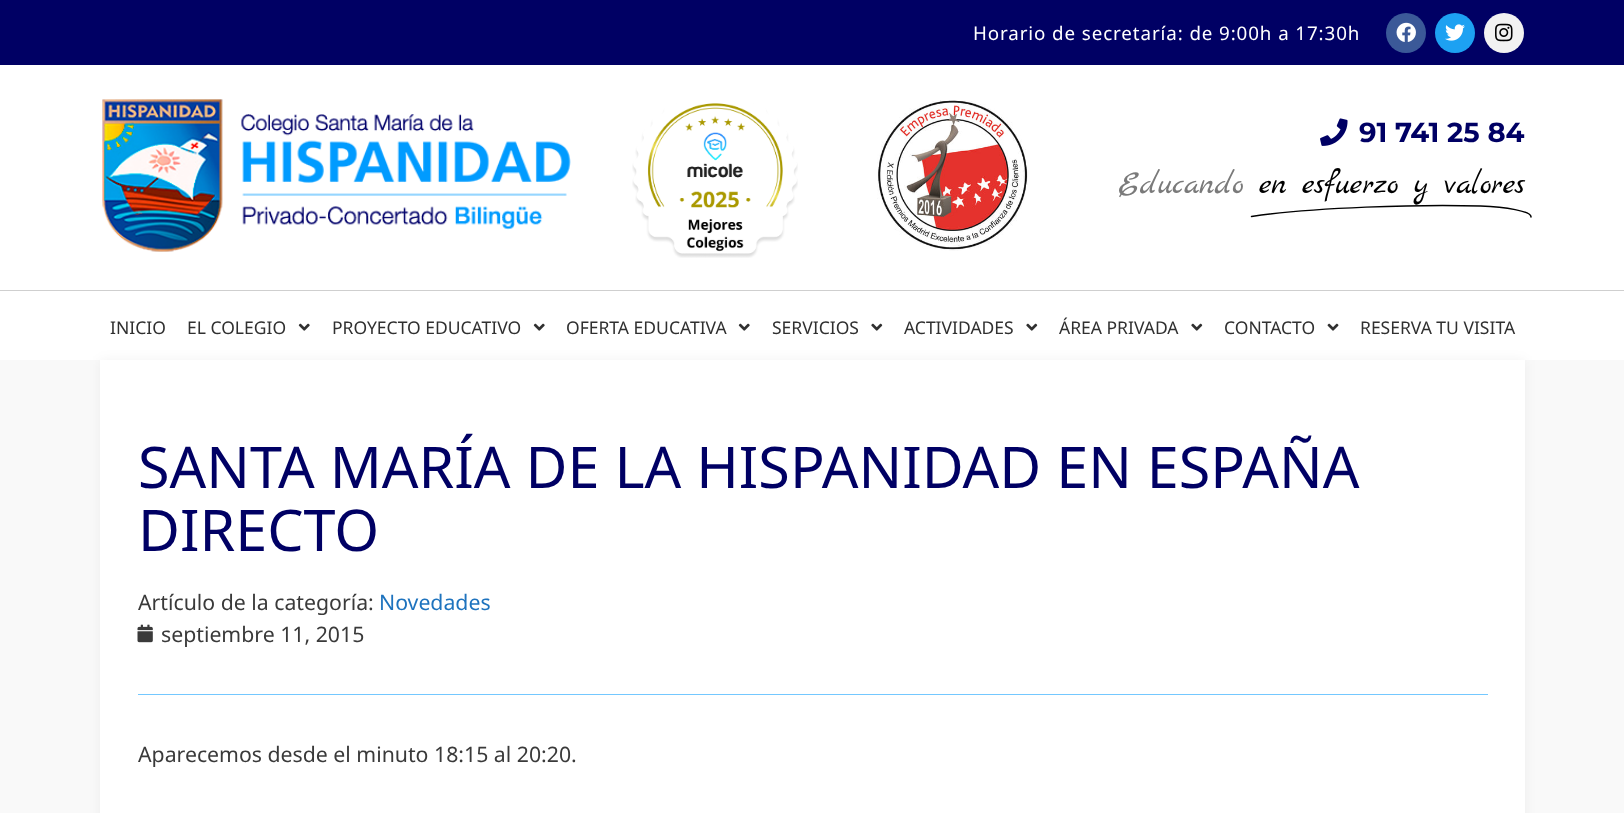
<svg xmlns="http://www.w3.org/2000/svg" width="1624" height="813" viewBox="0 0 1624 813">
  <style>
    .t1 { font: 18.75px Noto Sans; letter-spacing: 0.9px; fill: #fff; }
    .t2 { font: bold 27.5px Montserrat; fill: #000064; }
    .t3 { font: 32.5px Marck Script; fill: #7a7a7a; }
    .t4 { font: 32.5px Marck Script; fill: #000; }
    .t5 { font: 17.5px Noto Sans; fill: #303030; }
    .t6 { font: 57.5px Noto Sans; fill: #000064; }
    .t7 { font: 21.25px Noto Sans; fill: #3a3a3a; }
    .t8 { font: 21.25px Noto Sans; fill: #1e73be; }
  </style>
  <rect width="100%" height="100%" fill="#fff"/>
  <rect x="0" y="0" width="1624" height="65" fill="#000064"/>
  <text x="973" y="40" class="t1">Horario de secretaría: de 9:00h a 17:30h</text>
  <circle cx="1406" cy="33" r="20" fill="#3b5998"/>
  <image x="1396" y="22" width="20" height="20" href="images/1.png"/>
  <circle cx="1455" cy="33" r="20" fill="#1da1f2"/>
  <image x="1445" y="24" width="20" height="17" href="images/2.png"/>
  <circle cx="1504" cy="33" r="20" fill="#f2f2f2"/>
  <image x="1495" y="23" width="18" height="19" href="images/3.png"/>
  <image x="102" y="99" width="469" height="153" href="images/4.png"/>
  <image x="632" y="103" width="166" height="155" href="images/5.png"/>
  <image x="877" y="100" width="151" height="151" href="images/6.png"/>
  <image x="1320" y="118" width="28" height="28" href="images/7.png"/>
  <text x="1359" y="142" class="t2">91 741 25 84</text>
  <text x="1118" y="193" class="t3">Educando</text>
  <path d="M1251.5 216.5C1310.5 207.5 1421.5 204 1480.5 206C1505 207 1531.5 211 1531 217" fill="none" stroke="#000" stroke-width="1.5" stroke-linecap="round" stroke-linejoin="round"/>
  <text x="1259" y="193" class="t4">en esfuerzo y valores</text>
  <rect x="0" y="290" width="1624" height="1" fill="#cfcfcf"/>
  <text x="110" y="334" class="t5">INICIO</text>
  <text x="187" y="334" class="t5">EL COLEGIO</text>
  <image x="298" y="323" width="12" height="8" href="images/8.png"/>
  <text x="332" y="334" class="t5">PROYECTO EDUCATIVO</text>
  <image x="533" y="323" width="12" height="8" href="images/8.png"/>
  <text x="566" y="334" class="t5">OFERTA EDUCATIVA</text>
  <image x="738" y="323" width="12" height="8" href="images/8.png"/>
  <text x="772" y="334" class="t5">SERVICIOS</text>
  <image x="871" y="323" width="12" height="8" href="images/9.png"/>
  <text x="904" y="334" class="t5">ACTIVIDADES</text>
  <image x="1026" y="323" width="12" height="8" href="images/9.png"/>
  <text x="1059" y="334" class="t5">ÁREA PRIVADA</text>
  <image x="1191" y="323" width="12" height="8" href="images/9.png"/>
  <text x="1224" y="334" class="t5">CONTACTO</text>
  <image x="1327" y="323" width="12" height="8" href="images/10.png"/>
  <text x="1360" y="334" class="t5">RESERVA TU VISITA</text>
  <rect x="0" y="360" width="1624" height="453" fill="#f9f9f9"/>
  <rect x="100" y="360" width="1425" height="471" fill="#0000000d" filter="blur(6px)"/>
  <rect x="100" y="360" width="1425" height="453" fill="#fff"/>
  <text x="138" y="488" class="t6">SANTA MARÍA DE LA HISPANIDAD EN ESPAÑA</text>
  <text x="138" y="551" class="t6">DIRECTO</text>
  <text x="138" y="610" class="t7">Artículo de la categoría:</text>
  <text x="379" y="610" class="t8">Novedades</text>
  <image x="137" y="624" width="16" height="19" href="images/11.png"/>
  <text x="161" y="642" class="t7">septiembre 11, 2015</text>
  <rect x="138" y="694" width="1350" height="1" fill="#74c8ff"/>
  <text x="138" y="762" class="t7">Aparecemos desde el minuto 18:15 al 20:20.</text>
</svg>
